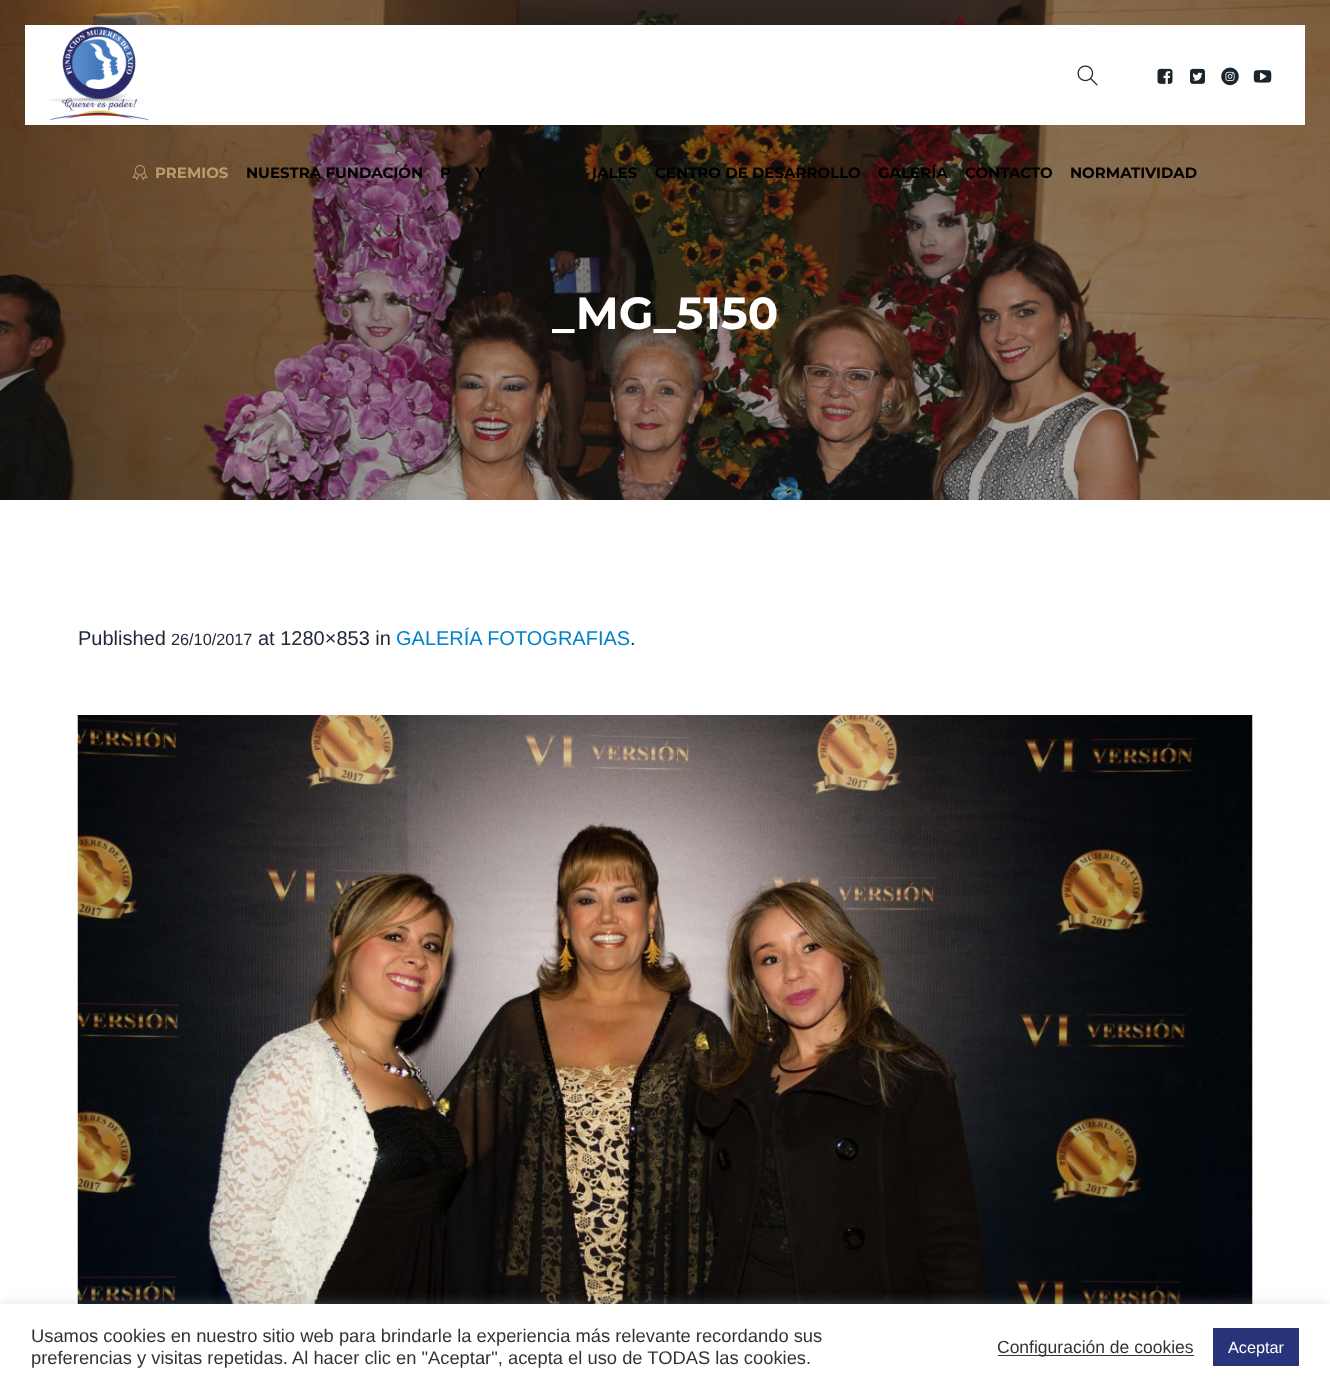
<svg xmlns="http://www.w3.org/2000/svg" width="1330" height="1389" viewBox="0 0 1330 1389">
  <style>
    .t1 { font: bold 15px Montserrat; fill: #bb9d6c; }
    .t2 { font: bold 15px Montserrat; fill: #000; }
    .t3 { font: bold 45px Montserrat; fill: #fff; }
    .t4 { font: 20px Liberation Sans; fill: #212938; }
    .t5 { font: 16.25px Liberation Sans; fill: #212938; }
    .t6 { font: 20px Liberation Sans; fill: #0081cc; }
    .t7 { font: 18.35px Liberation Sans; fill: #333; }
    .t8 { font: 17.5px Liberation Sans; fill: #333; }
    .t9 { font: 16.25px Liberation Sans; fill: #fff; }
  </style>
  <rect width="100%" height="100%" fill="#fff"/>
  <image x="0" y="0" width="1330" height="500" href="images/8.png"/>
  <rect x="25" y="25" width="1280" height="100" fill="#fff"/>
  <image x="50" y="26" width="99" height="95" href="images/1.png"/>
  <image x="1077" y="65" width="21" height="21" href="images/2.png"/>
  <image x="1157" y="68" width="16" height="16" href="images/3.png"/>
  <image x="1190" y="68" width="15" height="16" href="images/4.png"/>
  <image x="1221" y="67" width="18" height="19" href="images/5.png"/>
  <image x="1253" y="70" width="19" height="13" href="images/6.png"/>
  <image x="132" y="165" width="16" height="15" href="images/7.png"/>
  <text x="155" y="178" class="t1">PREMIOS</text>
  <text x="246" y="178" class="t2">NUESTRA FUNDACIÓN</text>
  <text x="440" y="178" class="t2">P</text>
  <text x="475" y="178" class="t2">Y</text>
  <text x="592" y="178" class="t2">IALES</text>
  <text x="655" y="178" class="t2">CENTRO DE DESARROLLO</text>
  <text x="878" y="178" class="t2">GALERÍA</text>
  <text x="965" y="178" class="t2">CONTACTO</text>
  <text x="1070" y="178" class="t2">NORMATIVIDAD</text>
  <text x="552" y="329" class="t3">_MG_5150</text>
  <text x="78" y="645" class="t4">Published</text>
  <text x="171" y="645" class="t5">26/10/2017</text>
  <text x="258" y="645" class="t4">at 1280×853 in</text>
  <text x="396" y="645" class="t6">GALERÍA FOTOGRAFIAS</text>
  <text x="630" y="645" class="t4">.</text>
  <image x="77" y="715" width="1176" height="589" href="images/9.png"/>
  <rect x="0" y="1303" width="1330" height="86" fill="#acabab4d" filter="blur(6px)"/>
  <rect x="0" y="1304" width="1330" height="85" fill="#fff"/>
  <text x="31" y="1342" class="t7">Usamos cookies en nuestro sitio web para brindarle la experiencia más relevante recordando sus</text>
  <text x="31" y="1364" class="t7">preferencias y visitas repetidas. Al hacer clic en "Aceptar", acepta el uso de TODAS las cookies.</text>
  <rect x="998" y="1355" width="196" height="1" fill="#333"/>
  <text x="997" y="1353" class="t8">Configuración de cookies</text>
  <rect x="1213" y="1328" width="86" height="38" fill="#273479"/>
  <text x="1228" y="1353" class="t9">Aceptar</text>
</svg>
